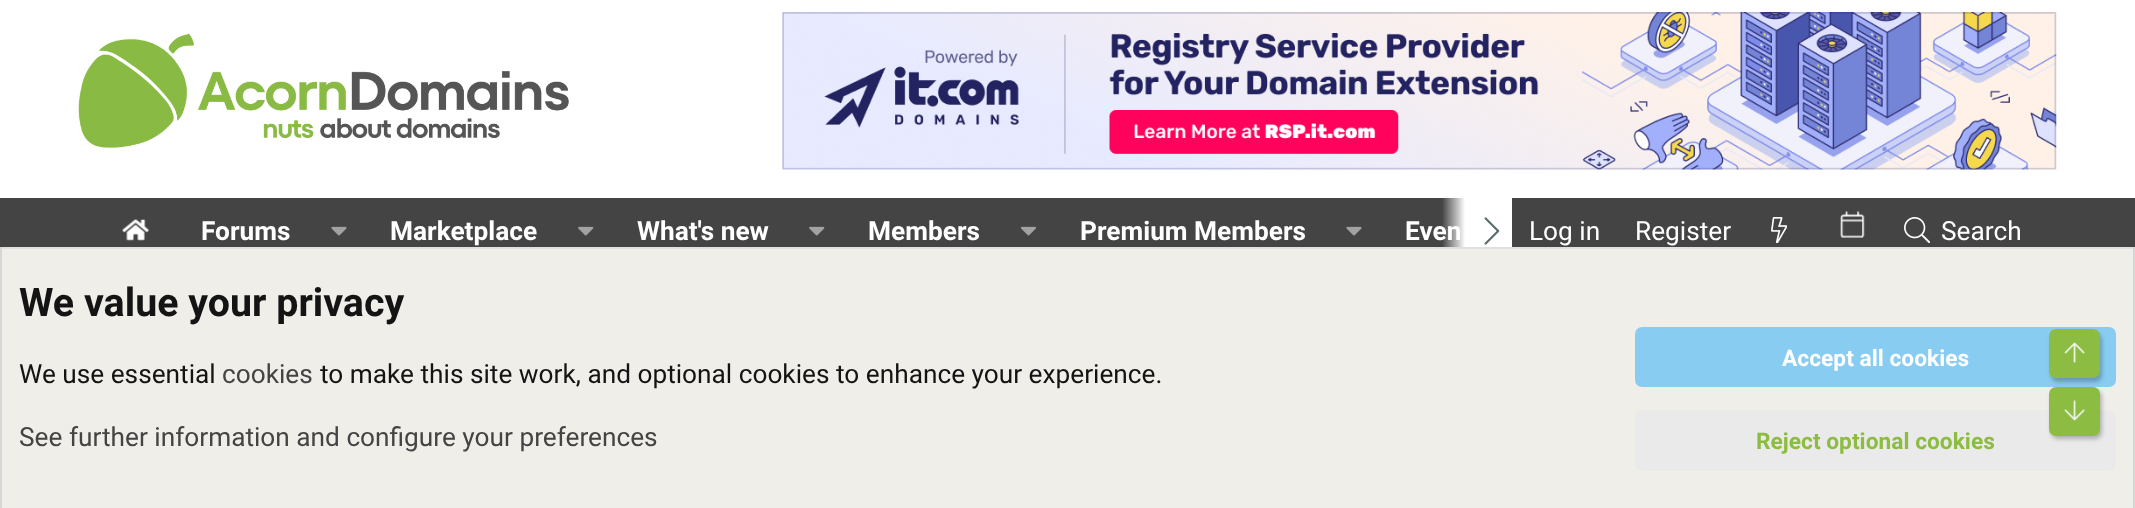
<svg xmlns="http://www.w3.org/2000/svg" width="2135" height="508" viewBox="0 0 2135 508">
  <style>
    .t1 { font: bold 26.25px Roboto; fill: #fff; }
    .t2 { font: 26.25px Roboto; fill: #fff; }
    .t3 { font: bold 39.4px Roboto; fill: #141414; }
    .t4 { font: 26.25px Roboto; fill: #141414; }
    .t5 { font: 26.25px Roboto; fill: #444; }
    .t6 { font: bold 22.75px Roboto; fill: #fff; }
    .t7 { font: bold 22.75px Roboto; fill: #8cbc42; }
  </style>
  <defs>
    <linearGradient id="g1" gradientUnits="userSpaceOnUse" x1="1442" y1="230" x2="1512" y2="230"><stop offset="0" stop-color="#fff" stop-opacity="0"/><stop offset="0.33" stop-color="#fff"/></linearGradient>
  </defs>
  <rect width="100%" height="100%" fill="#fff"/>
  <image x="78" y="33" width="491" height="115" href="images/1.png"/>
  <image x="782" y="12" width="1275" height="158" href="images/2.png"/>
  <rect x="0" y="198" width="2135" height="49" fill="#444"/>
  <image x="122" y="219" width="27" height="22" href="images/3.png"/>
  <text x="201" y="240" class="t1">Forums</text>
  <image x="331" y="226" width="16" height="10" href="images/4.png"/>
  <text x="390" y="240" class="t1">Marketplace</text>
  <image x="578" y="226" width="16" height="10" href="images/5.png"/>
  <text x="637" y="240" class="t1">What's new</text>
  <image x="809" y="226" width="16" height="10" href="images/5.png"/>
  <text x="868" y="240" class="t1">Members</text>
  <image x="1020" y="226" width="16" height="10" href="images/6.png"/>
  <text x="1080" y="240" class="t1">Premium Members</text>
  <image x="1346" y="226" width="16" height="10" href="images/4.png"/>
  <text x="1405" y="240" class="t1">Even</text>
  <rect x="1442" y="198" width="70" height="49" fill="url(#g1)"/>
  <image x="1484" y="217" width="16" height="28" href="images/7.png"/>
  <text x="1529" y="240" class="t2">Log in</text>
  <text x="1635" y="240" class="t2">Register</text>
  <image x="1771" y="217" width="16" height="26" href="images/8.png"/>
  <image x="1840" y="211" width="25" height="27" href="images/9.png"/>
  <image x="1904" y="217" width="26" height="26" href="images/10.png"/>
  <text x="1941" y="240" class="t2">Search</text>
  <rect x="2" y="249" width="2131" height="259" fill="#f0eee9"/>
  <rect x="0" y="247" width="2135" height="2" fill="#e0e0e0"/>
  <rect x="2133" y="247" width="2" height="261" fill="#d6d6d6"/>
  <rect x="0" y="247" width="2" height="261" fill="#d6d6d6"/>
  <text x="19" y="316" class="t3">We value your privacy</text>
  <text x="19" y="383" class="t4">We use essential</text>
  <text x="222" y="383" class="t5">cookies</text>
  <text x="320" y="383" class="t4">to make this site work, and optional cookies to enhance your experience.</text>
  <text x="19" y="446" class="t5">See further information and configure your preferences</text>
  <rect x="1635" y="327" width="481" height="60" rx="7" fill="#88cdf1"/>
  <text x="1782" y="366" class="t6">Accept all cookies</text>
  <rect x="1635" y="410" width="481" height="61" rx="7" fill="#eaeaea"/>
  <text x="1756" y="449" class="t7">Reject optional cookies</text>
  <rect x="2051" y="333" width="51" height="49" rx="7" fill="#00000040" filter="blur(2px)"/>
  <rect x="2049" y="329" width="51" height="49" rx="7" fill="#8cbc42"/>
  <image x="2064" y="342" width="22" height="22" href="images/11.png"/>
  <rect x="2051" y="390" width="51" height="49" rx="7" fill="#00000040" filter="blur(2px)"/>
  <rect x="2049" y="387" width="51" height="49" rx="7" fill="#8cbc42"/>
  <image x="2064" y="400" width="21" height="21" href="images/12.png"/>
</svg>
